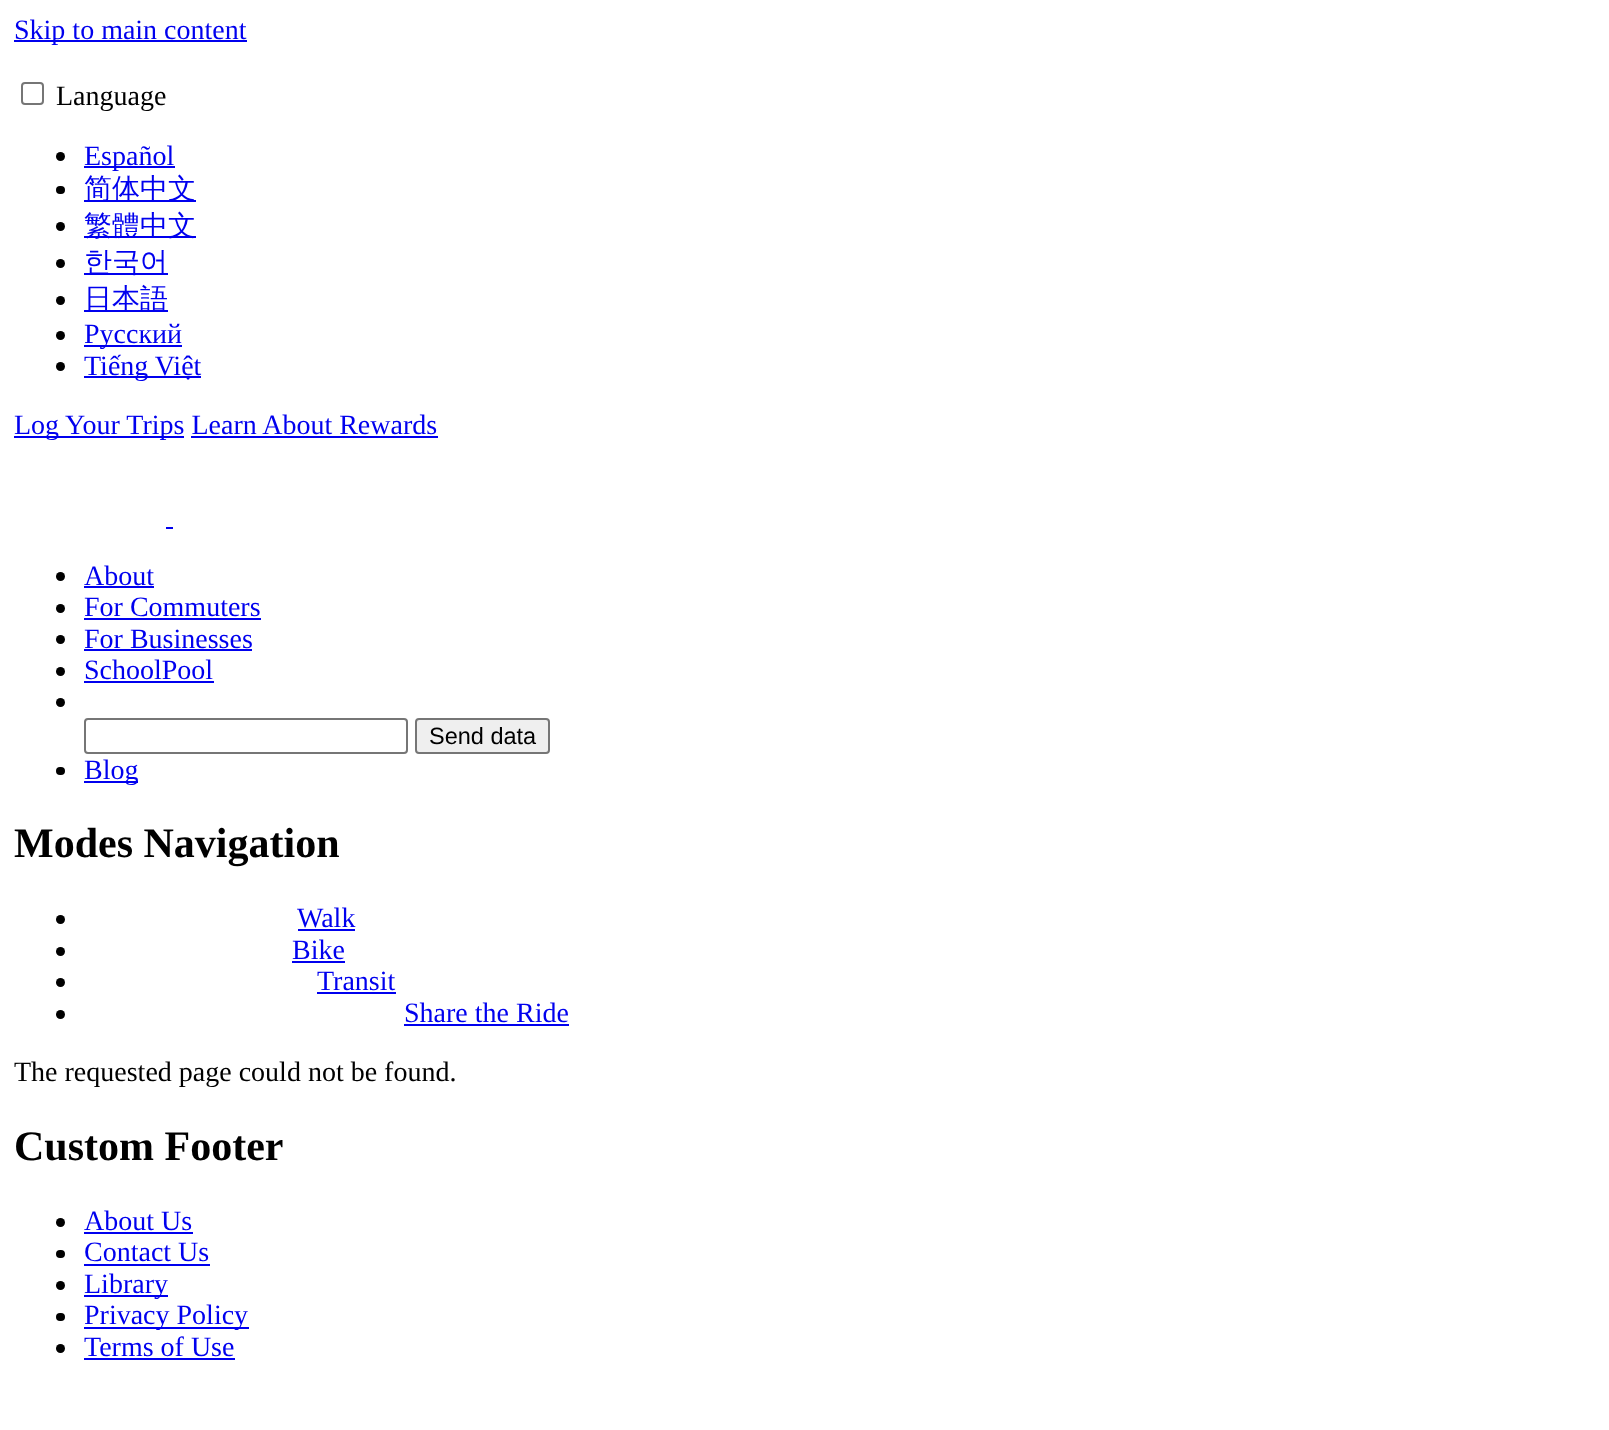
<svg xmlns="http://www.w3.org/2000/svg" width="1609" height="1430" viewBox="0 0 1609 1430">
  <style>
    .t1 { font: 28px Liberation Serif; fill: #00e; }
    .t2 { font: 28px Liberation Serif; fill: #000; }
    .t3 { font: 500 28px WenQuanYi Zen Hei; fill: #00e; }
    .t4 { font: 23.5px Liberation Sans; fill: #000; }
    .t5 { font: bold 42px Liberation Serif; fill: #000; }
  </style>
  <rect width="100%" height="100%" fill="#fff"/>
  <rect x="14" y="40" width="233" height="2" fill="#00e"/>
  <text x="14" y="39" class="t1">Skip to main content</text>
  <rect x="22" y="83" width="21" height="21" rx="3" fill="none" stroke="#767676" stroke-width="2"/>
  <text x="56" y="105" class="t2">Language</text>
  <circle cx="60.5" cy="156.5" r="4.5" fill="#000"/>
  <rect x="84" y="166" width="91" height="2" fill="#00e"/>
  <text x="84" y="165" class="t1">Español</text>
  <rect x="56" y="186" width="9" height="8" rx="4" fill="#000"/>
  <rect x="84" y="200" width="112" height="2" fill="#00e"/>
  <text x="84" y="198" class="t3">简体中文</text>
  <circle cx="60.5" cy="226.5" r="4.5" fill="#000"/>
  <rect x="84" y="236" width="112" height="2" fill="#00e"/>
  <text x="84" y="235" class="t3">繁體中文</text>
  <circle cx="60.5" cy="263.5" r="4.5" fill="#000"/>
  <rect x="84" y="273" width="84" height="2" fill="#00e"/>
  <text x="84" y="271" class="t3">한국어</text>
  <circle cx="60.5" cy="300.5" r="4.5" fill="#000"/>
  <rect x="84" y="310" width="84" height="2" fill="#00e"/>
  <text x="84" y="308" class="t3">日本語</text>
  <circle cx="60.5" cy="335.5" r="4.5" fill="#000"/>
  <rect x="84" y="345" width="98" height="2" fill="#00e"/>
  <text x="84" y="343" class="t1">Pусский</text>
  <circle cx="60.5" cy="366.5" r="4.5" fill="#000"/>
  <rect x="84" y="376" width="117" height="2" fill="#00e"/>
  <text x="84" y="375" class="t1">Tiếng Việt</text>
  <rect x="14" y="436" width="170" height="2" fill="#00e"/>
  <text x="14" y="434" class="t1">Log Your Trips Learn About Rewards</text>
  <rect x="191" y="436" width="247" height="2" fill="#00e"/>
  <rect x="166" y="527" width="7" height="2" fill="#00e"/>
  <circle cx="60.5" cy="576.5" r="4.5" fill="#000"/>
  <text x="84" y="585" class="t1">About</text>
  <rect x="84" y="586" width="70" height="2" fill="#00e"/>
  <circle cx="60.5" cy="608.5" r="4.5" fill="#000"/>
  <text x="84" y="616" class="t1">For Commuters</text>
  <rect x="84" y="618" width="177" height="2" fill="#00e"/>
  <circle cx="60.5" cy="639.5" r="4.5" fill="#000"/>
  <text x="84" y="648" class="t1">For Businesses</text>
  <rect x="84" y="649" width="168" height="2" fill="#00e"/>
  <circle cx="60.5" cy="671.5" r="4.5" fill="#000"/>
  <text x="84" y="679" class="t1">SchoolPool</text>
  <rect x="84" y="681" width="130" height="2" fill="#00e"/>
  <circle cx="60.5" cy="702.5" r="4.5" fill="#000"/>
  <rect x="85" y="719" width="322" height="34" rx="3" fill="none" stroke="#767676" stroke-width="2"/>
  <rect x="416" y="719" width="133" height="34" rx="3" fill="#efefef" stroke="#767676" stroke-width="2"/>
  <text x="429" y="744" class="t4">Send data</text>
  <rect x="56" y="767" width="9" height="8" rx="4" fill="#000"/>
  <rect x="84" y="781" width="54" height="2" fill="#00e"/>
  <text x="84" y="779" class="t1">Blog</text>
  <text x="14" y="857" class="t5">Modes Navigation</text>
  <circle cx="60.5" cy="919.5" r="4.5" fill="#000"/>
  <text x="297" y="927" class="t1">Walk</text>
  <rect x="298" y="929" width="57" height="2" fill="#00e"/>
  <circle cx="60.5" cy="951.5" r="4.5" fill="#000"/>
  <text x="292" y="959" class="t1">Bike</text>
  <rect x="292" y="961" width="53" height="2" fill="#00e"/>
  <circle cx="60.5" cy="982.5" r="4.5" fill="#000"/>
  <text x="317" y="990" class="t1">Transit</text>
  <rect x="317" y="992" width="79" height="2" fill="#00e"/>
  <circle cx="60.5" cy="1014.5" r="4.5" fill="#000"/>
  <text x="404" y="1022" class="t1">Share the Ride</text>
  <rect x="404" y="1024" width="165" height="2" fill="#00e"/>
  <text x="14" y="1081" class="t2">The requested page could not be found.</text>
  <text x="14" y="1160" class="t5">Custom Footer</text>
  <circle cx="60.5" cy="1222.5" r="4.5" fill="#000"/>
  <text x="84" y="1230" class="t1">About Us</text>
  <rect x="84" y="1232" width="109" height="2" fill="#00e"/>
  <rect x="56" y="1250" width="9" height="8" rx="4" fill="#000"/>
  <text x="84" y="1261" class="t1">Contact Us</text>
  <rect x="84" y="1264" width="126" height="2" fill="#00e"/>
  <circle cx="60.5" cy="1285.5" r="4.5" fill="#000"/>
  <rect x="84" y="1295" width="84" height="2" fill="#00e"/>
  <text x="84" y="1293" class="t1">Library</text>
  <rect x="56" y="1313" width="9" height="8" rx="4" fill="#000"/>
  <rect x="84" y="1327" width="165" height="2" fill="#00e"/>
  <text x="84" y="1324" class="t1">Privacy Policy</text>
  <circle cx="60.5" cy="1348.5" r="4.5" fill="#000"/>
  <text x="84" y="1356" class="t1">Terms of Use</text>
  <rect x="84" y="1358" width="151" height="2" fill="#00e"/>
</svg>
